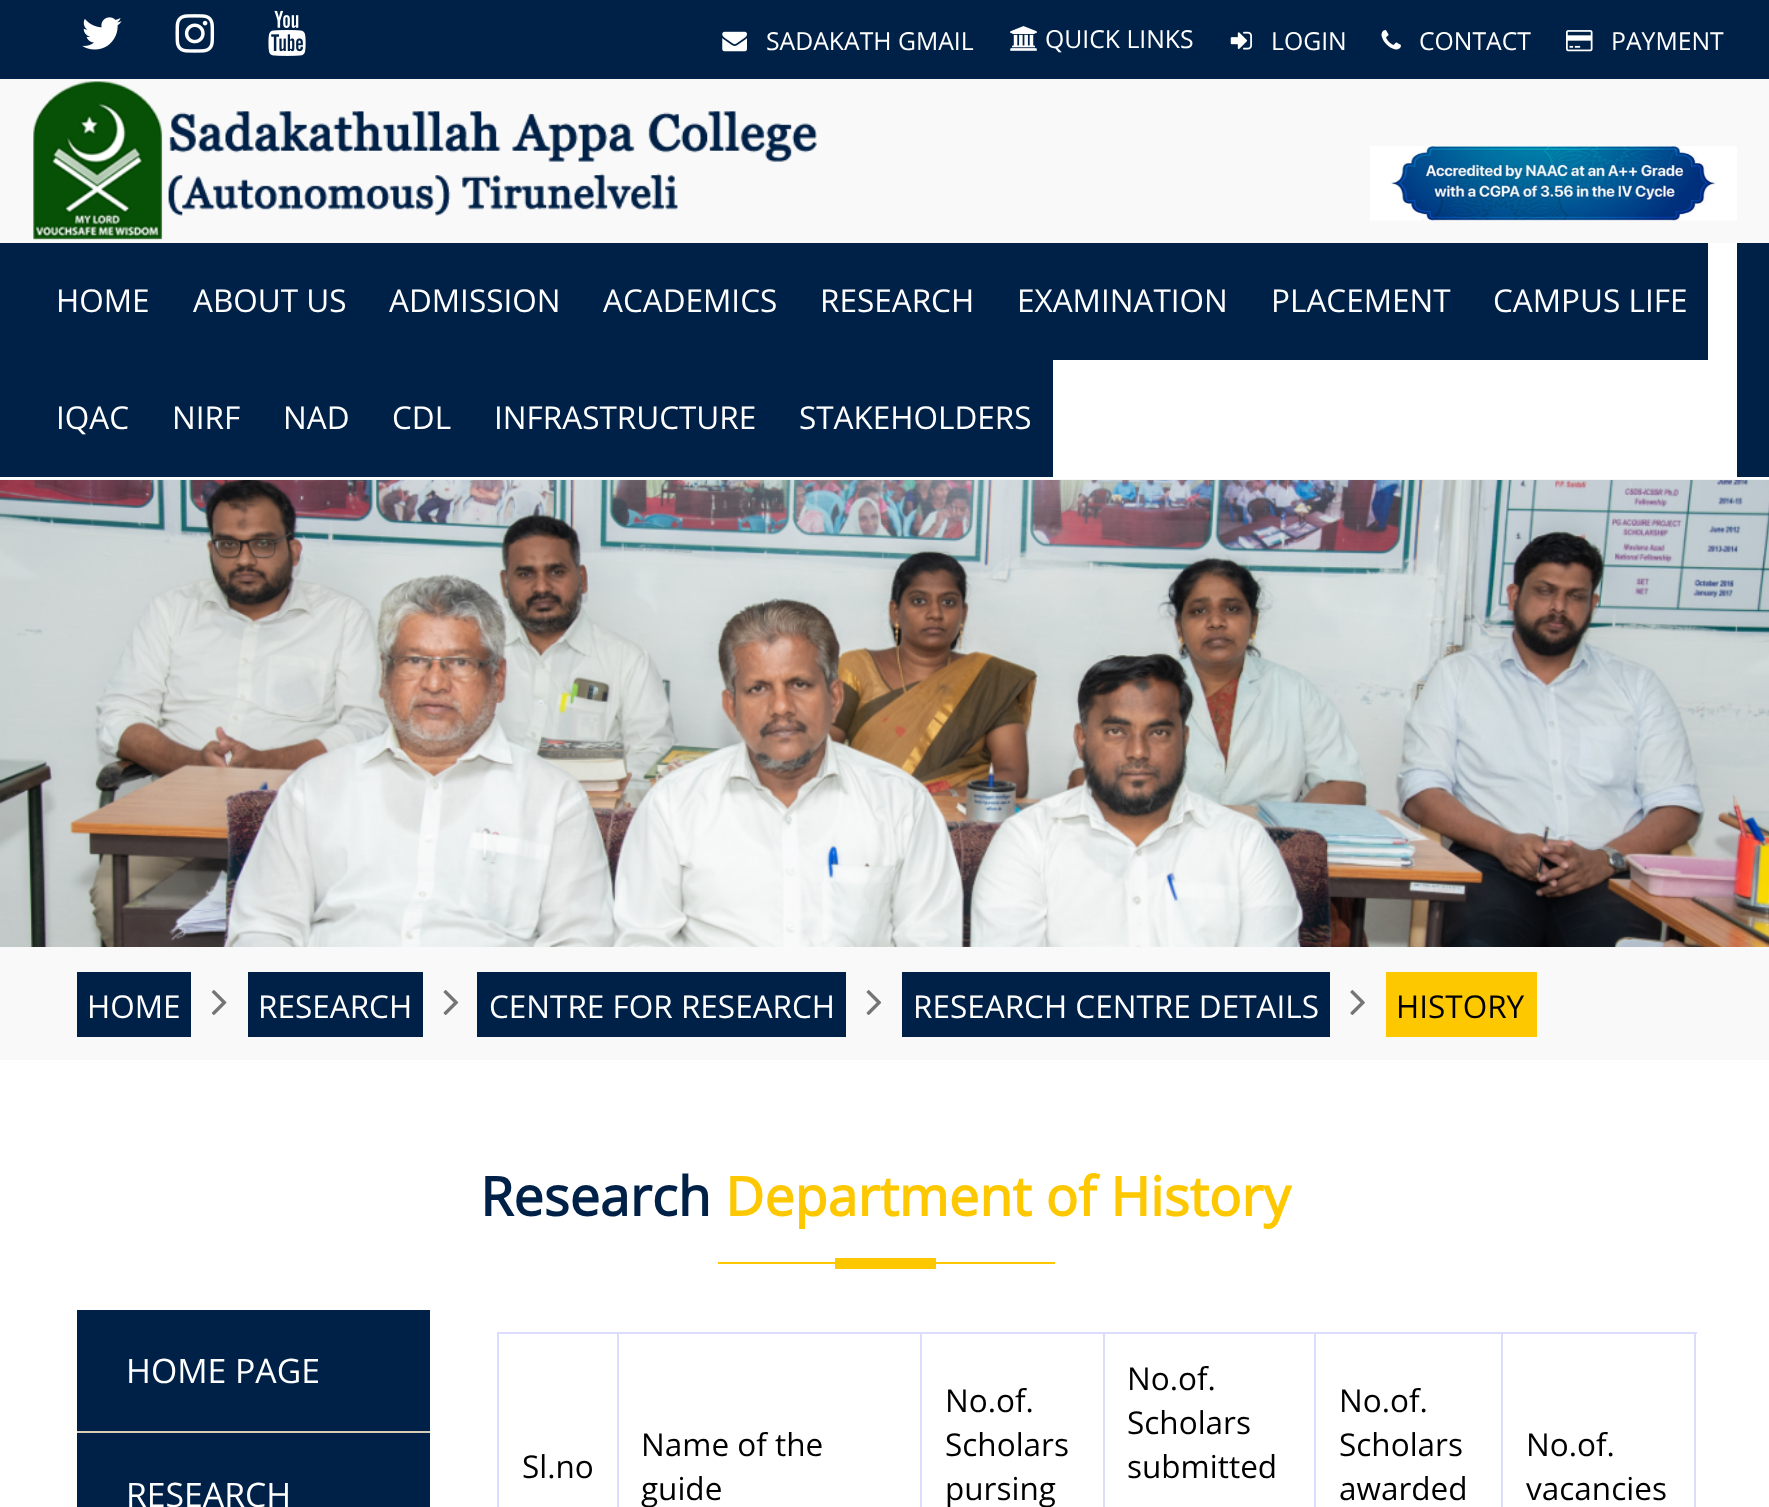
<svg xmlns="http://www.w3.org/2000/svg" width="1769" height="1507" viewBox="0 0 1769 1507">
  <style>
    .t1 { font: 24.75px Open Sans; fill: #fff; }
    .t2 { font: 31.5px Open Sans; fill: #fff; }
    .t3 { font: 31.5px Open Sans; fill: #000; }
    .t4 { font: bold 54px Open Sans; fill: #002147; }
    .t5 { font: bold 54px Open Sans; fill: #fdc800; }
    .t6 { font: 33.75px Open Sans; fill: #fff; }
  </style>
  <rect width="100%" height="100%" fill="#fff"/>
  <rect x="0" y="0" width="1769" height="79" fill="#002147"/>
  <image x="82" y="17" width="40" height="33" href="images/1.png"/>
  <image x="175" y="14" width="40" height="39" href="images/2.png"/>
  <image x="268" y="10" width="38" height="46" href="images/3.png"/>
  <image x="722" y="31" width="25" height="21" href="images/4.png"/>
  <text x="766" y="50" class="t1">SADAKATH GMAIL</text>
  <image x="1010" y="26" width="27" height="25" href="images/5.png"/>
  <text x="1045" y="48" class="t1">QUICK LINKS</text>
  <image x="1230" y="31" width="22" height="19" href="images/6.png"/>
  <text x="1271" y="50" class="t1">LOGIN</text>
  <image x="1381" y="30" width="20" height="20" href="images/7.png"/>
  <text x="1419" y="50" class="t1">CONTACT</text>
  <image x="1566" y="30" width="27" height="22" href="images/8.png"/>
  <text x="1611" y="50" class="t1">PAYMENT</text>
  <rect x="0" y="79" width="1769" height="164" fill="#f9f9f9"/>
  <image x="33" y="81" width="784" height="159" href="images/9.png"/>
  <image x="1370" y="146" width="367" height="75" href="images/10.png"/>
  <rect x="0" y="479" width="1769" height="1" fill="#f8f8f8"/>
  <rect x="0" y="243" width="1769" height="234" fill="#002147"/>
  <rect x="1053" y="243" width="684" height="234" fill="#fff"/>
  <text x="56" y="312" class="t2">HOME</text>
  <text x="193" y="312" class="t2">ABOUT US</text>
  <text x="389" y="312" class="t2">ADMISSION</text>
  <text x="603" y="312" class="t2">ACADEMICS</text>
  <text x="820" y="312" class="t2">RESEARCH</text>
  <rect x="1053" y="243" width="655" height="117" fill="#002147"/>
  <text x="1017" y="312" class="t2">EXAMINATION</text>
  <text x="1271" y="312" class="t2">PLACEMENT</text>
  <text x="1493" y="312" class="t2">CAMPUS LIFE</text>
  <text x="56" y="429" class="t2">IQAC</text>
  <text x="172" y="429" class="t2">NIRF</text>
  <text x="283" y="429" class="t2">NAD</text>
  <text x="392" y="429" class="t2">CDL</text>
  <text x="494" y="429" class="t2">INFRASTRUCTURE</text>
  <text x="799" y="429" class="t2">STAKEHOLDERS</text>
  <image x="0" y="480" width="1769" height="467" href="images/11.png"/>
  <rect x="0" y="947" width="1769" height="113" fill="#f9f9f9"/>
  <rect x="77" y="972" width="114" height="65" fill="#002147"/>
  <text x="87" y="1018" class="t2">HOME</text>
  <image x="211" y="990" width="16" height="25" href="images/12.png"/>
  <rect x="248" y="972" width="175" height="65" fill="#002147"/>
  <text x="258" y="1018" class="t2">RESEARCH</text>
  <image x="443" y="990" width="16" height="25" href="images/13.png"/>
  <rect x="477" y="972" width="369" height="65" fill="#002147"/>
  <text x="489" y="1018" class="t2">CENTRE FOR RESEARCH</text>
  <image x="866" y="990" width="16" height="25" href="images/13.png"/>
  <rect x="902" y="972" width="428" height="65" fill="#002147"/>
  <text x="913" y="1018" class="t2">RESEARCH CENTRE DETAILS</text>
  <image x="1350" y="990" width="15" height="25" href="images/14.png"/>
  <rect x="1386" y="972" width="151" height="65" fill="#fdc800"/>
  <text x="1396" y="1018" class="t3">HISTORY</text>
  <text x="480" y="1216" class="t4">Research</text>
  <text x="725" y="1216" class="t5">Department of History</text>
  <rect x="718" y="1262" width="337" height="2" fill="#fdc800"/>
  <rect x="835" y="1258" width="101" height="11" fill="#fdc800"/>
  <rect x="77" y="1310" width="353" height="197" fill="#002147"/>
  <rect x="77" y="1431" width="353" height="2" fill="#d8cfb7"/>
  <text x="126" y="1383" class="t6">HOME PAGE</text>
  <text x="126" y="1507" class="t6">RESEARCH</text>
  <rect x="497" y="1332" width="1200" height="2" fill="#dcdcff"/>
  <rect x="1694" y="1332" width="2" height="175" fill="#dcdcff"/>
  <rect x="497" y="1332" width="2" height="175" fill="#dcdcff"/>
  <rect x="617" y="1332" width="2" height="175" fill="#dcdcff"/>
  <text x="522" y="1478" class="t3">Sl.no</text>
  <rect x="920" y="1332" width="2" height="175" fill="#dcdcff"/>
  <text x="641" y="1456" class="t3">Name of the</text>
  <text x="641" y="1500" class="t3">guide</text>
  <rect x="1103" y="1332" width="2" height="175" fill="#dcdcff"/>
  <text x="945" y="1412" class="t3">No.of.</text>
  <text x="945" y="1456" class="t3">Scholars</text>
  <text x="945" y="1500" class="t3">pursing</text>
  <rect x="1314" y="1332" width="2" height="175" fill="#dcdcff"/>
  <text x="1127" y="1390" class="t3">No.of.</text>
  <text x="1127" y="1434" class="t3">Scholars</text>
  <text x="1127" y="1478" class="t3">submitted</text>
  <rect x="1501" y="1332" width="2" height="175" fill="#dcdcff"/>
  <text x="1339" y="1412" class="t3">No.of.</text>
  <text x="1339" y="1456" class="t3">Scholars</text>
  <text x="1339" y="1500" class="t3">awarded</text>
  <text x="1526" y="1456" class="t3">No.of.</text>
  <text x="1526" y="1500" class="t3">vacancies</text>
</svg>
